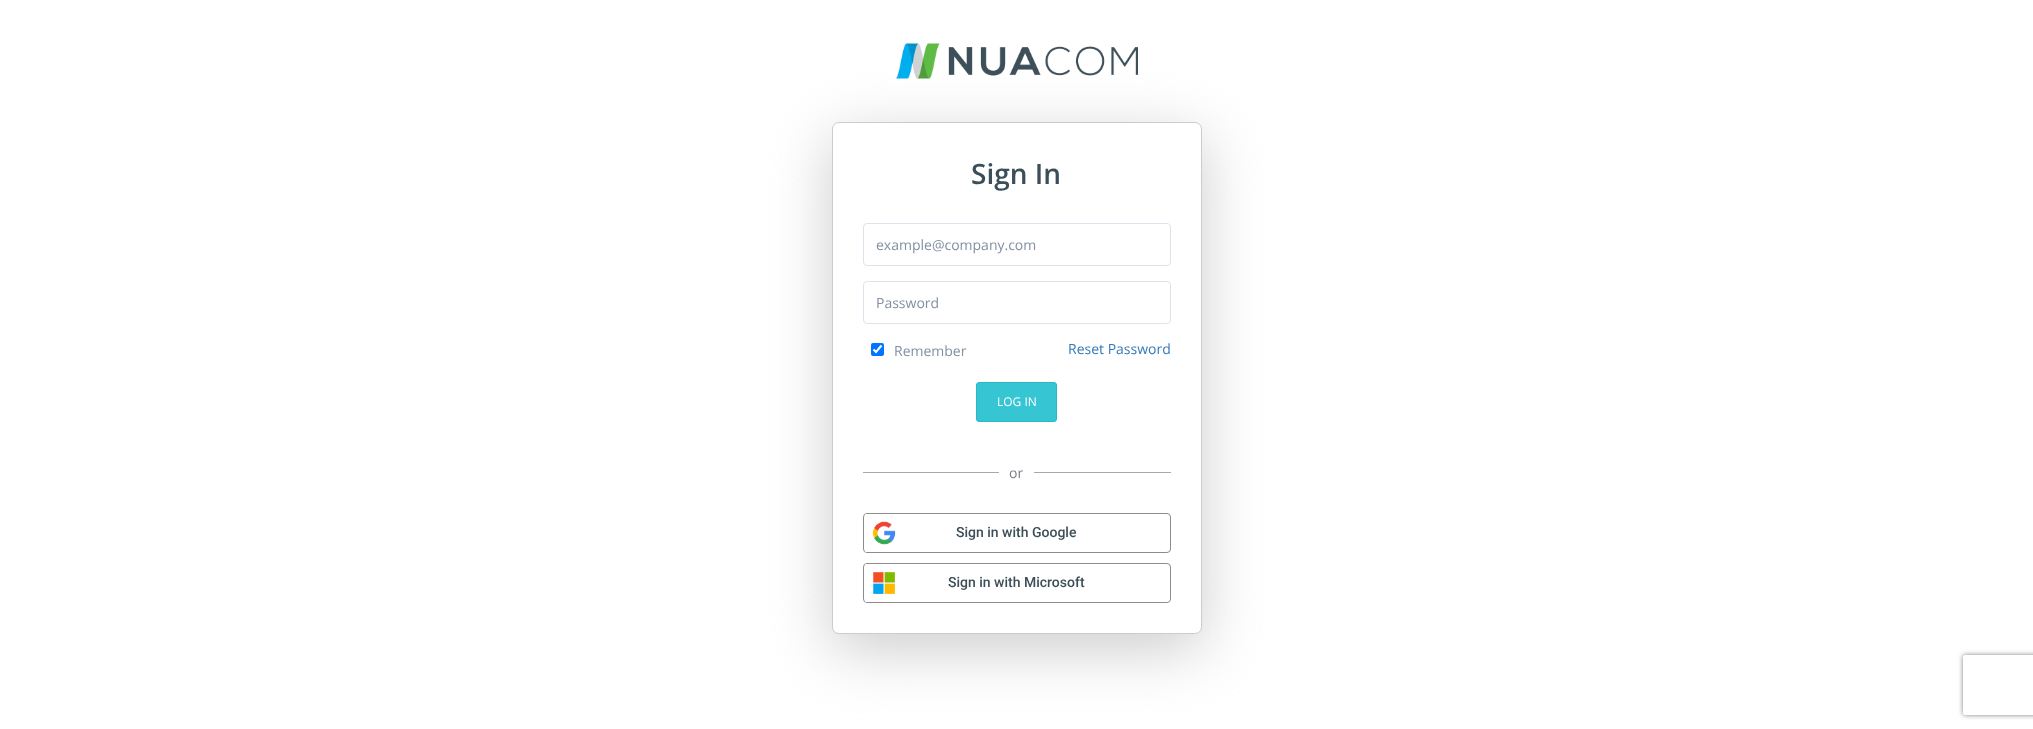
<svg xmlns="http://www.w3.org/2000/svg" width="2033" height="729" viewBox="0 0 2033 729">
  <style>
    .t1 { font: 600 28px Open Sans; fill: #3c4f58; }
    .t2 { font: 14px Open Sans; fill: #8290a3; }
    .t3 { font: 14px Open Sans; fill: #337ab7; }
    .t4 { font: 12px Open Sans; fill: #fff; }
    .t5 { font: 14px Open Sans; fill: #7c7c8b; }
    .t6 { font: 500 14px Roboto; fill: #3c4f58; }
  </style>
  <defs>
    <clipPath id="clip1"><path d="M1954 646H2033V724H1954ZM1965 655H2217C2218 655 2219 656 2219 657V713C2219 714 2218 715 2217 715H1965C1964 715 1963 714 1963 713V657C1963 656 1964 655 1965 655Z" clip-rule="evenodd"/></clipPath>
  </defs>
  <rect width="100%" height="100%" fill="#fff"/>
  <image x="895" y="43" width="243" height="36" href="images/1.png"/>
  <rect x="832" y="137" width="370" height="512" rx="7" fill="#ccc" filter="blur(30px)"/>
  <rect x="832.5" y="122.5" width="369" height="511" rx="6.5" fill="#fff" stroke="#ccc"/>
  <text x="971" y="184" class="t1">Sign In</text>
  <rect x="863.5" y="223.5" width="307" height="42" rx="3.5" fill="none" stroke="#dde3ec"/>
  <text x="876" y="250" class="t2">example@company.com</text>
  <rect x="863.5" y="281.5" width="307" height="42" rx="3.5" fill="none" stroke="#dde3ec"/>
  <text x="876" y="308" class="t2">Password</text>
  <rect x="871" y="343" width="13" height="13" rx="2" fill="#0075ff"/>
  <path d="M873.5 349.5L876 352L881.5 345.5" fill="none" stroke="#fff" stroke-width="2.1"/>
  <text x="894" y="356" class="t2">Remember</text>
  <text x="1068" y="354" class="t3">Reset Password</text>
  <rect x="976.5" y="382.5" width="80" height="39" rx="2.5" fill="#36c6d3" stroke="#2bb8c4"/>
  <text x="997" y="406" class="t4">LOG IN</text>
  <rect x="863" y="472" width="308" height="1" fill="#a8a8b1"/>
  <rect x="999" y="472" width="35" height="1" fill="#fff"/>
  <text x="1009" y="478" class="t5">or</text>
  <rect x="863.5" y="513.5" width="307" height="39" rx="3.5" fill="none" stroke="#8c8c8c"/>
  <path d="M866 514H903V552H866C865.5 552 865 551.5 865 551V515C865 514.5 865.5 514 866 514Z" fill="#fff"/>
  <image x="872" y="521" width="24" height="24" href="images/2.png"/>
  <text x="956" y="537" class="t6">Sign in with Google</text>
  <rect x="863.5" y="563.5" width="307" height="39" rx="3.5" fill="none" stroke="#8c8c8c"/>
  <path d="M866 564H903V602H866C865.5 602 865 601.5 865 601V565C865 564.5 865.5 564 866 564Z" fill="#fff"/>
  <image x="873" y="572" width="22" height="22" href="images/3.png"/>
  <text x="948" y="587" class="t6">Sign in with Microsoft</text>
  <g clip-path="url(#clip1)">
    <rect x="1963" y="655" width="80" height="60" rx="2" fill="#808080" filter="blur(2.5px)"/>
  </g>
</svg>
